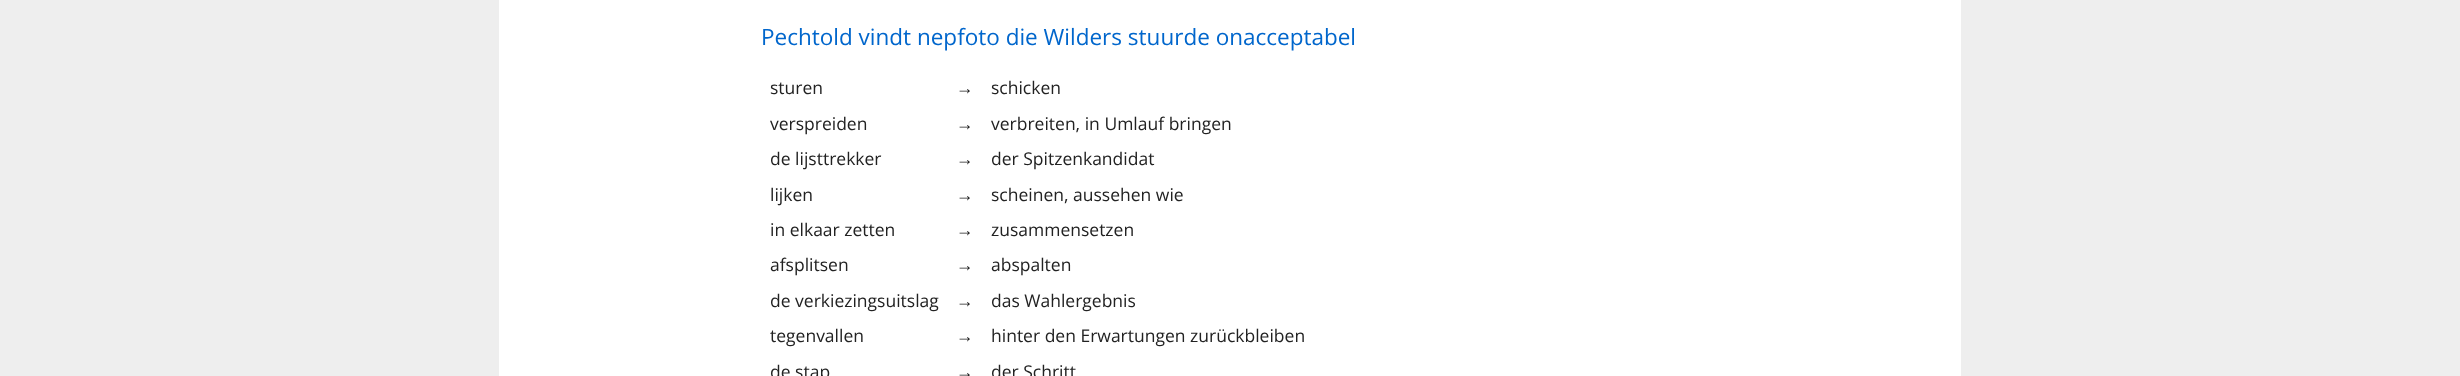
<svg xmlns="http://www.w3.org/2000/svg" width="2460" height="376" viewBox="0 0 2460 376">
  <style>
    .t1 { font: 22.5px Open Sans; fill: #06c; }
    .t2 { font: 17.5px Open Sans; fill: #222; }
    .t3 { font: 17.5px Liberation Sans; fill: #222; }
  </style>
  <rect width="100%" height="100%" fill="#eee"/>
  <rect x="499" y="0" width="1462" height="376" fill="#fff"/>
  <text x="761" y="45" class="t1">Pechtold vindt nepfoto die Wilders stuurde onacceptabel</text>
  <text x="770" y="94" class="t2">sturen</text>
  <text x="956" y="94" class="t3">→</text>
  <text x="991" y="94" class="t2">schicken</text>
  <text x="770" y="130" class="t2">verspreiden</text>
  <text x="956" y="130" class="t3">→</text>
  <text x="991" y="130" class="t2">verbreiten, in Umlauf bringen</text>
  <text x="770" y="165" class="t2">de lijsttrekker</text>
  <text x="956" y="165" class="t3">→</text>
  <text x="991" y="165" class="t2">der Spitzenkandidat</text>
  <text x="770" y="201" class="t2">lijken</text>
  <text x="956" y="201" class="t3">→</text>
  <text x="991" y="201" class="t2">scheinen, aussehen wie</text>
  <text x="770" y="236" class="t2">in elkaar zetten</text>
  <text x="956" y="236" class="t3">→</text>
  <text x="991" y="236" class="t2">zusammensetzen</text>
  <text x="770" y="271" class="t2">afsplitsen</text>
  <text x="956" y="271" class="t3">→</text>
  <text x="991" y="271" class="t2">abspalten</text>
  <text x="770" y="307" class="t2">de verkiezingsuitslag</text>
  <text x="956" y="307" class="t3">→</text>
  <text x="991" y="307" class="t2">das Wahlergebnis</text>
  <text x="770" y="342" class="t2">tegenvallen</text>
  <text x="956" y="342" class="t3">→</text>
  <text x="991" y="342" class="t2">hinter den Erwartungen zurückbleiben</text>
  <text x="770" y="378" class="t2">de stap</text>
  <text x="956" y="378" class="t3">→</text>
  <text x="991" y="378" class="t2">der Schritt</text>
</svg>
